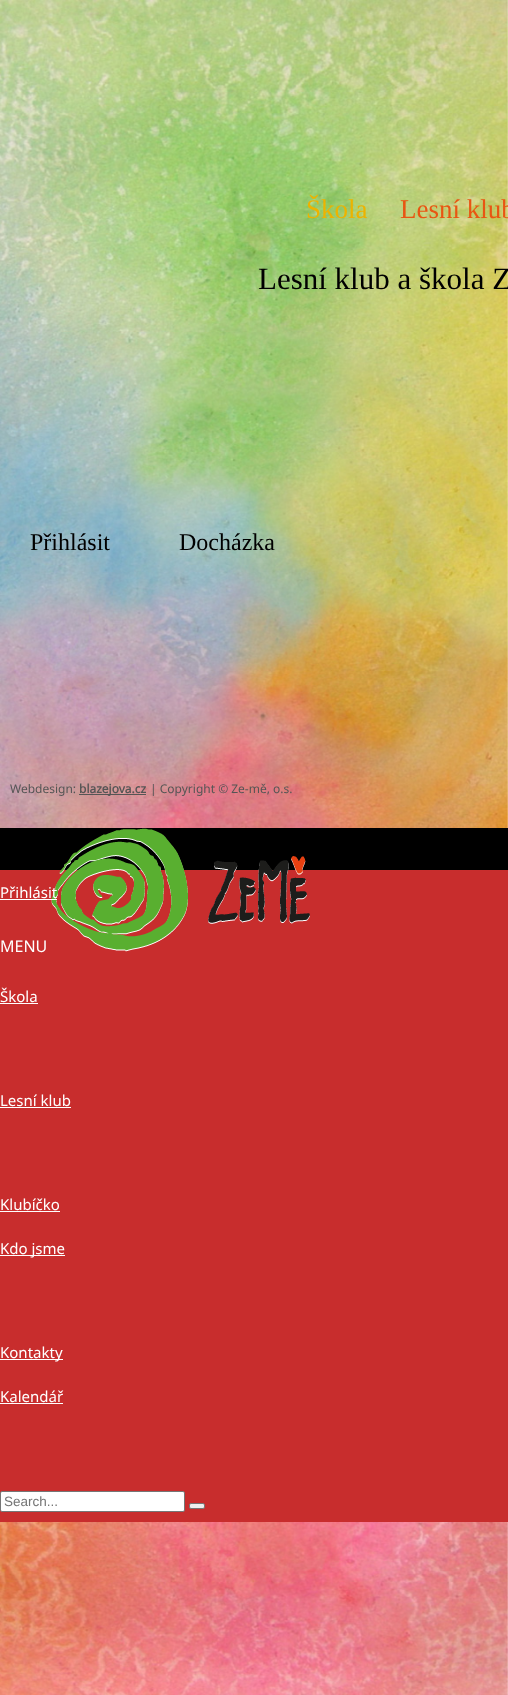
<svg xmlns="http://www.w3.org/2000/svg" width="508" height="1695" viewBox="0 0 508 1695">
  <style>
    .t1 { font: 27px Liberation Serif; fill: #edb300; }
    .t2 { font: 27px Liberation Serif; fill: #e95512; }
    .t3 { font: 31px Liberation Serif; fill: #000; }
    .t4 { font: 24px Liberation Serif; fill: #000; }
    .t5 { font: 12px Noto Sans; fill: #555; }
    .t6 { font: bold 12px Noto Sans; fill: #555; }
    .t7 { font: 15px Noto Sans; fill: #fff; }
    .t8 { font: 13.5px Liberation Sans; fill: #757575; }
    .t9 { font: 16px Noto Sans; fill: #fff; }
  </style>
  <rect width="100%" height="100%" fill="#fff"/>
  <image x="0" y="0" width="508" height="1695" href="images/1.png"/>
  <text x="306" y="218" class="t1">Škola</text>
  <text x="400" y="218" class="t2">Lesní klub</text>
  <text x="258" y="289" class="t3">Lesní klub a škola Z</text>
  <text x="30" y="550" class="t4">Přihlásit</text>
  <text x="179" y="550" class="t4">Docházka</text>
  <text x="10" y="793" class="t5">Webdesign:</text>
  <rect x="79" y="794" width="67" height="1" fill="#555"/>
  <text x="79" y="793" class="t6">blazejova.cz</text>
  <text x="150" y="793" class="t5">| Copyright © Ze-mě, o.s.</text>
  <rect x="0" y="870" width="508" height="652" fill="#c82d2d"/>
  <rect x="0" y="828" width="508" height="42" fill="#000"/>
  <image x="51" y="828" width="259" height="124" href="images/2.png"/>
  <text x="0" y="898" class="t7">Přihlásit</text>
  <rect x="0" y="899" width="57" height="1" fill="#fff"/>
  <text x="0" y="1002" class="t7">Škola</text>
  <rect x="0" y="1003" width="38" height="1" fill="#fff"/>
  <text x="0" y="1106" class="t7">Lesní klub</text>
  <rect x="0" y="1107" width="71" height="1" fill="#fff"/>
  <text x="0" y="1210" class="t7">Klubíčko</text>
  <rect x="0" y="1211" width="60" height="1" fill="#fff"/>
  <rect x="0" y="1255" width="65" height="1" fill="#fff"/>
  <text x="0" y="1254" class="t7">Kdo jsme</text>
  <rect x="0" y="1359" width="63" height="1" fill="#fff"/>
  <text x="0" y="1358" class="t7">Kontakty</text>
  <text x="0" y="1402" class="t7">Kalendář</text>
  <rect x="0" y="1403" width="63" height="1" fill="#fff"/>
  <rect x="0.5" y="1491.5" width="184" height="20" rx="1.5" fill="#fff" stroke="#767676"/>
  <text x="4" y="1506" class="t8">Search...</text>
  <rect x="189.5" y="1503.5" width="15" height="5" rx="1.5" fill="#efefef" stroke="#767676"/>
  <text x="0" y="952" class="t9">MENU</text>
</svg>
